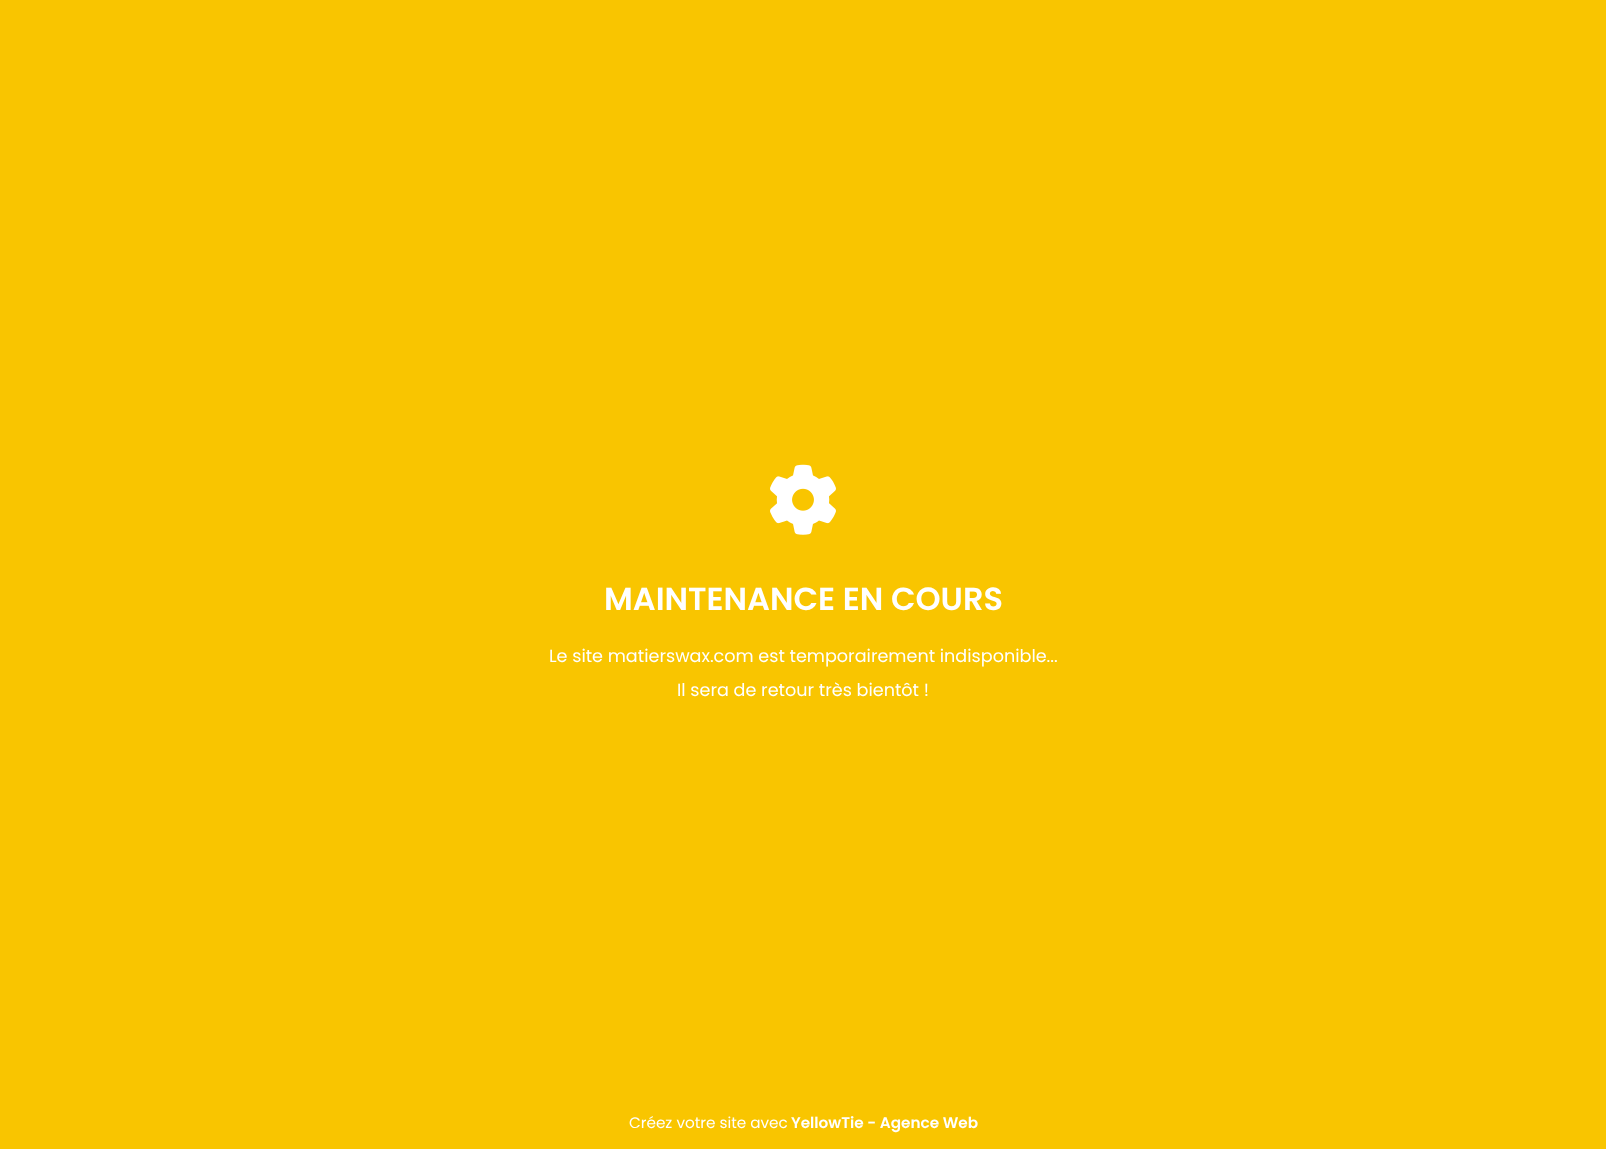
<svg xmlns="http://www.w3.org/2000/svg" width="1606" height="1149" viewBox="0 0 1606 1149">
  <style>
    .t1 { font: 600 32px Poppins; fill: #fff; }
    .t2 { font: 17.6px Poppins; fill: #fff; }
    .t3 { font: 15.25px Poppins; fill: #fff; }
    .t4 { font: 600 15.25px Poppins; fill: #fff; }
  </style>
  <rect width="100%" height="100%" fill="#f9c500"/>
  <image x="770" y="464" width="66" height="71" href="images/1.png"/>
  <text x="604" y="610" class="t1">MAINTENANCE EN COURS</text>
  <text x="549" y="662" class="t2">Le site matierswax.com est temporairement indisponible...</text>
  <text x="677" y="696" class="t2">Il sera de retour très bientôt !</text>
  <text x="629" y="1128" class="t3">Créez votre site avec</text>
  <text x="791" y="1128" class="t4">YellowTie - Agence Web</text>
</svg>
